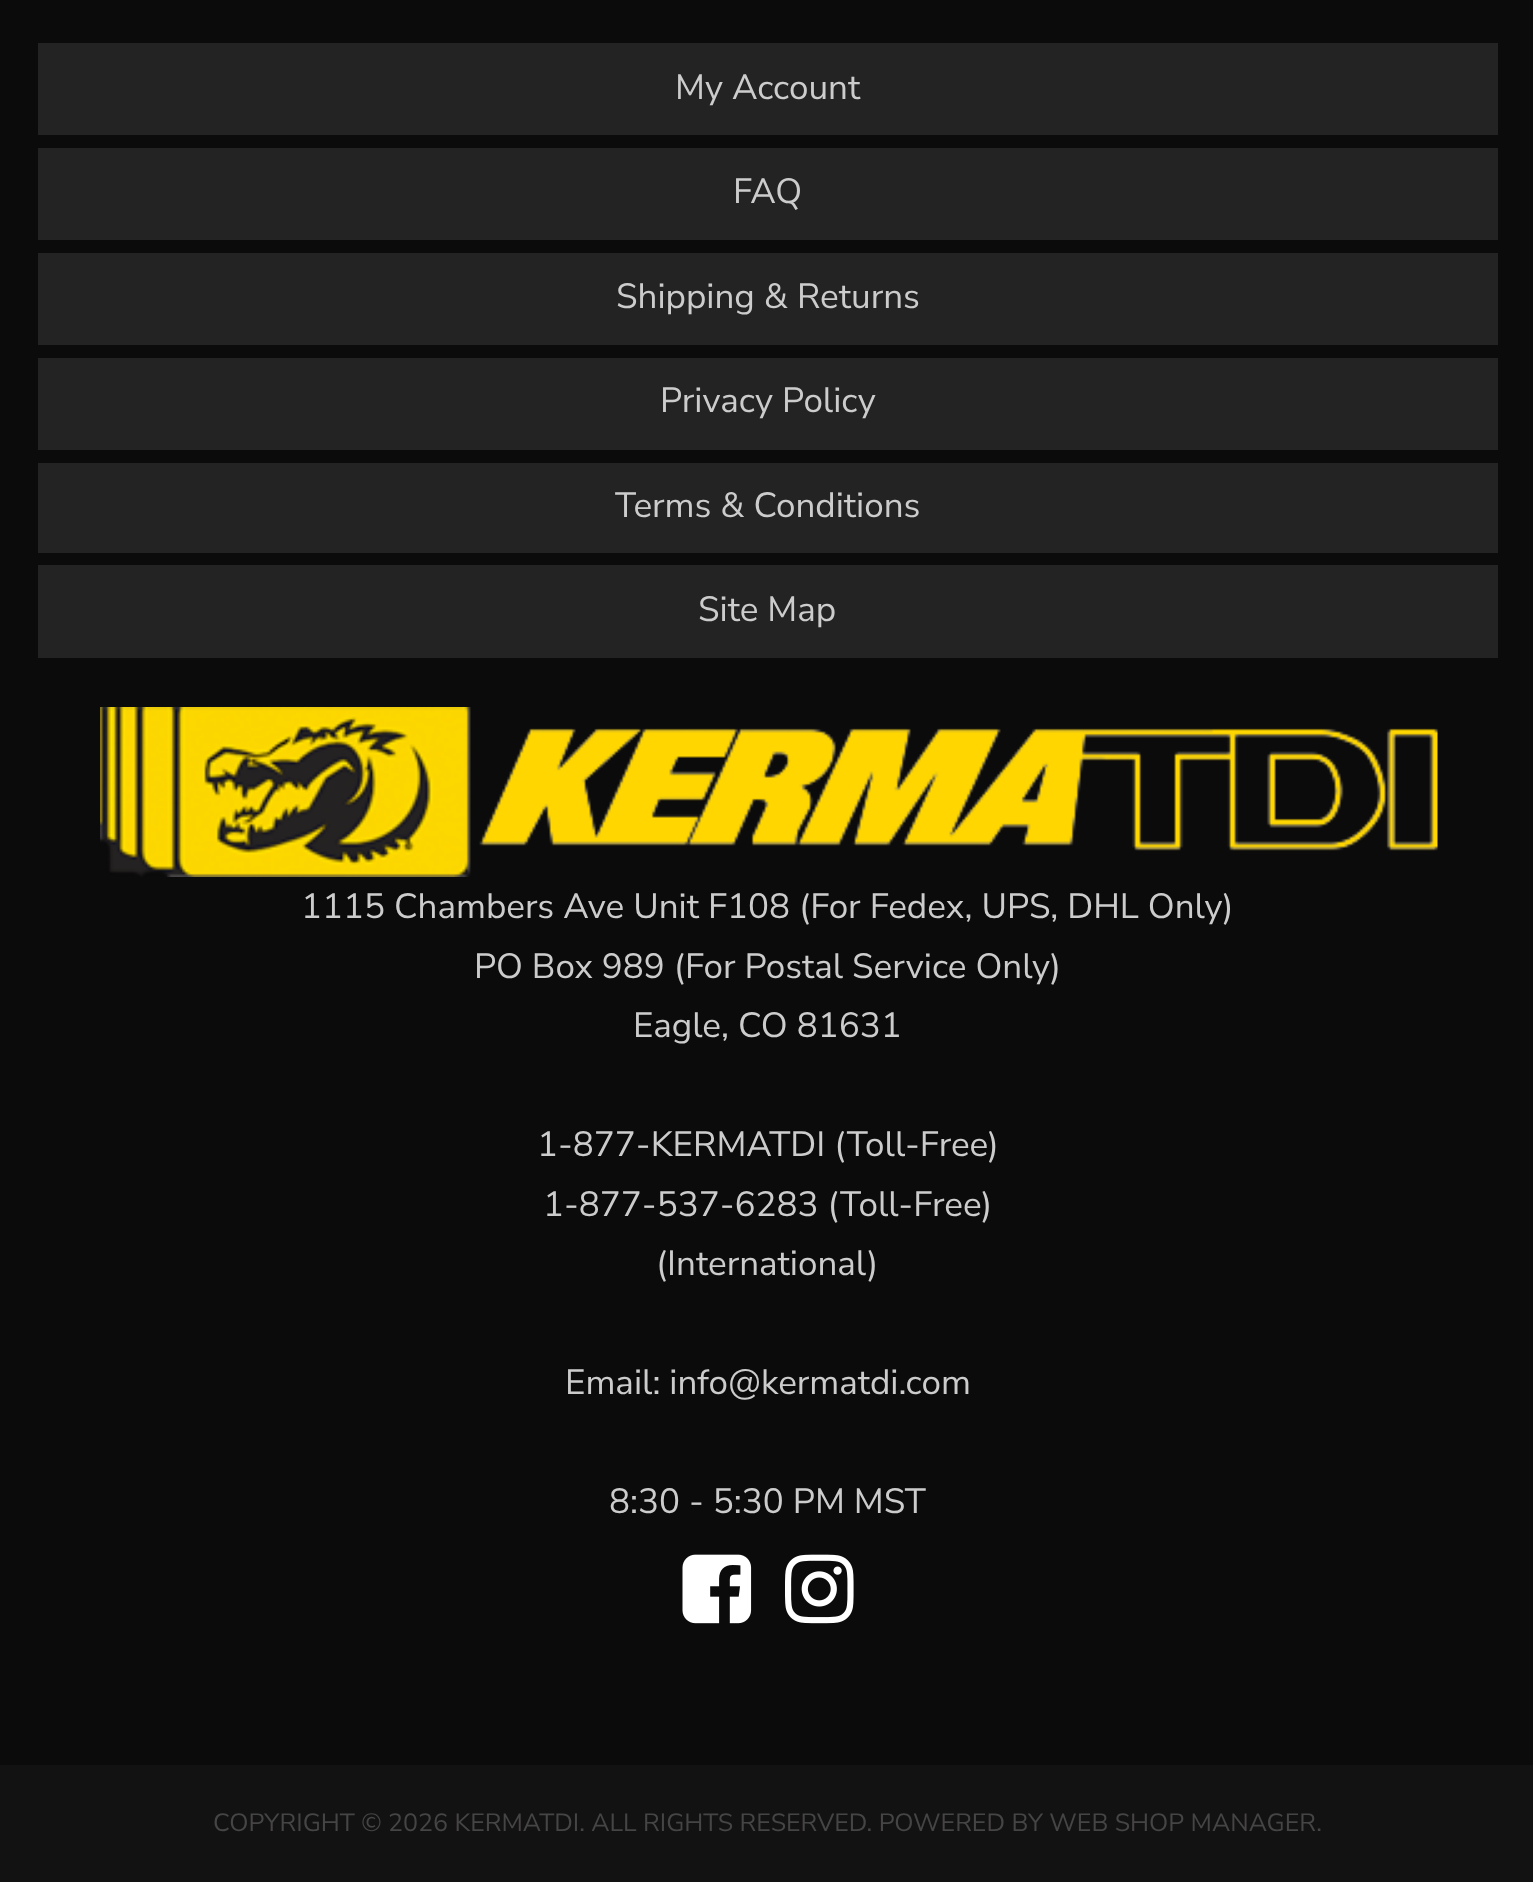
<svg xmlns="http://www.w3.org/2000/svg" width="1533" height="1882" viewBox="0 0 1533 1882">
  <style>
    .t1 { font: 35px Nunito Sans; fill: #ccc; }
    .t2 { font: 25px Nunito Sans; fill: #464545; }
  </style>
  <rect width="100%" height="100%" fill="#0c0b0b"/>
  <rect x="38" y="43" width="1460" height="92" fill="#242323"/>
  <text x="675" y="99" class="t1">My Account</text>
  <rect x="38" y="148" width="1460" height="92" fill="#242323"/>
  <text x="733" y="203" class="t1">FAQ</text>
  <rect x="38" y="253" width="1460" height="92" fill="#242323"/>
  <text x="616" y="308" class="t1">Shipping &amp; Returns</text>
  <rect x="38" y="358" width="1460" height="92" fill="#242323"/>
  <text x="660" y="412" class="t1">Privacy Policy</text>
  <rect x="38" y="463" width="1460" height="90" fill="#242323"/>
  <text x="615" y="517" class="t1">Terms &amp; Conditions</text>
  <rect x="38" y="565" width="1460" height="93" fill="#242323"/>
  <text x="698" y="621" class="t1">Site Map</text>
  <image x="100" y="707" width="1338" height="170" href="images/1.png"/>
  <text x="301" y="918" class="t1">1115 Chambers Ave Unit F108 (For Fedex, UPS, DHL Only)</text>
  <text x="474" y="978" class="t1">PO Box 989 (For Postal Service Only)</text>
  <text x="633" y="1037" class="t1">Eagle, CO 81631</text>
  <text x="537" y="1156" class="t1">1-877-KERMATDI (Toll-Free)</text>
  <text x="543" y="1216" class="t1">1-877-537-6283 (Toll-Free)</text>
  <text x="656" y="1275" class="t1">(International)</text>
  <text x="565" y="1394" class="t1">Email: info@kermatdi.com</text>
  <text x="609" y="1513" class="t1">8:30 - 5:30 PM MST</text>
  <image x="682" y="1554" width="70" height="70" href="images/2.png"/>
  <image x="785" y="1554" width="69" height="70" href="images/3.png"/>
  <rect x="0" y="1765" width="1533" height="117" fill="#131212"/>
  <text x="213" y="1831" class="t2">COPYRIGHT © 2026 KERMATDI. ALL RIGHTS RESERVED. POWERED BY WEB SHOP MANAGER.</text>
</svg>
